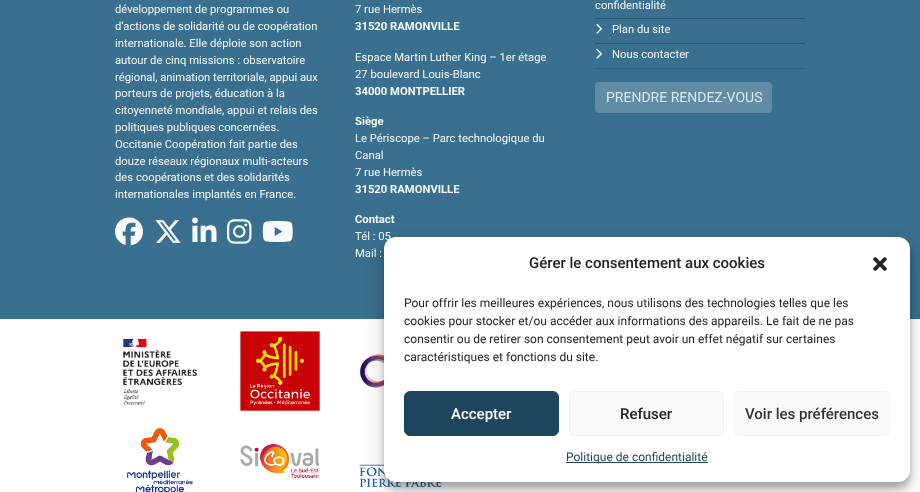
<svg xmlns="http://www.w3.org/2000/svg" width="920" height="492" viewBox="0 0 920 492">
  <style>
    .t1 { font: 11.25px Roboto; fill: #f8f9fa; }
    .t2 { font: bold 11.25px Roboto; fill: #f8f9fa; }
    .t3 { font: 14px Roboto; fill: #dfe8ed; }
    .t4 { font: 500 15px Roboto; fill: #222; }
    .t5 { font: 12px Roboto; fill: #222; }
    .t6 { font: 500 15px Roboto; fill: #fff; }
    .t7 { font: 500 15px Roboto; fill: #333; }
    .t8 { font: 12px Roboto; fill: #1d465e; }
  </style>
  <rect width="100%" height="100%" fill="#396f8f"/>
  <text x="115" y="13" class="t1">développement de programmes ou</text>
  <text x="115" y="30" class="t1">d’actions de solidarité ou de coopération</text>
  <text x="115" y="47" class="t1">internationale. Elle déploie son action</text>
  <text x="115" y="64" class="t1">autour de cinq missions : observatoire</text>
  <text x="115" y="81" class="t1">régional, animation territoriale, appui aux</text>
  <text x="115" y="97" class="t1">porteurs de projets, éducation à la</text>
  <text x="115" y="114" class="t1">citoyenneté mondiale, appui et relais des</text>
  <text x="115" y="131" class="t1">politiques publiques concernées.</text>
  <text x="115" y="148" class="t1">Occitanie Coopération fait partie des</text>
  <text x="115" y="165" class="t1">douze réseaux régionaux multi-acteurs</text>
  <text x="115" y="181" class="t1">des coopérations et des solidarités</text>
  <text x="115" y="198" class="t1">internationales implantés en France.</text>
  <image x="115" y="217" width="28" height="29" href="images/1.png"/>
  <image x="155" y="220" width="26" height="23" href="images/2.png"/>
  <image x="192" y="217" width="25" height="25" href="images/3.png"/>
  <image x="227" y="219" width="25" height="25" href="images/4.png"/>
  <image x="262" y="221" width="31" height="21" href="images/5.png"/>
  <text x="355" y="13" class="t1">7 rue Hermès</text>
  <text x="355" y="30" class="t2">31520 RAMONVILLE</text>
  <text x="355" y="61" class="t1">Espace Martin Luther King – 1er étage</text>
  <text x="355" y="78" class="t1">27 boulevard Louis-Blanc</text>
  <text x="355" y="95" class="t2">34000 MONTPELLIER</text>
  <text x="355" y="125" class="t2">Siège</text>
  <text x="355" y="142" class="t1">Le Périscope – Parc technologique du</text>
  <text x="355" y="159" class="t1">Canal</text>
  <text x="355" y="176" class="t1">7 rue Hermès</text>
  <text x="355" y="193" class="t2">31520 RAMONVILLE</text>
  <text x="355" y="223" class="t2">Contact</text>
  <text x="355" y="240" class="t1">Tél : 05</text>
  <text x="355" y="257" class="t1">Mail :</text>
  <text x="595" y="9" class="t1">confidentialité</text>
  <rect x="595" y="18" width="210" height="1" fill="#2c556d"/>
  <image x="596" y="24" width="6" height="10" href="images/6.png"/>
  <text x="612" y="33" class="t1">Plan du site</text>
  <rect x="595" y="43" width="210" height="1" fill="#2c556d"/>
  <rect x="595" y="68" width="210" height="1" fill="#32617d"/>
  <image x="596" y="49" width="6" height="10" href="images/6.png"/>
  <text x="612" y="58" class="t1">Nous contacter</text>
  <rect x="595" y="82" width="177" height="31" rx="4" fill="#618ca5"/>
  <text x="606" y="102" class="t3">PRENDRE RENDEZ-VOUS</text>
  <rect x="0" y="319" width="920" height="173" fill="#fff"/>
  <image x="123" y="338" width="74" height="67" href="images/7.png"/>
  <image x="240" y="331" width="80" height="80" href="images/8.png"/>
  <image x="360" y="354" width="24" height="34" href="images/9.png"/>
  <image x="127" y="428" width="66" height="64" href="images/10.png"/>
  <image x="240" y="443" width="80" height="35" href="images/11.png"/>
  <image x="359" y="435" width="83" height="52" href="images/12.png"/>
  <rect x="384" y="243" width="526" height="245" rx="12" fill="#0000003b" filter="blur(3px)"/>
  <rect x="384" y="247" width="526" height="245" rx="12" fill="#00000030" filter="blur(10px)"/>
  <rect x="384" y="237" width="526" height="245" rx="12" fill="#fff"/>
  <text x="529" y="268" class="t4">Gérer le consentement aux cookies</text>
  <image x="873" y="257" width="14" height="14" href="images/13.png"/>
  <text x="404" y="307" class="t5">Pour offrir les meilleures expériences, nous utilisons des technologies telles que les</text>
  <text x="404" y="325" class="t5">cookies pour stocker et/ou accéder aux informations des appareils. Le fait de ne pas</text>
  <text x="404" y="343" class="t5">consentir ou de retirer son consentement peut avoir un effet négatif sur certaines</text>
  <text x="404" y="361" class="t5">caractéristiques et fonctions du site.</text>
  <rect x="404.5" y="391.5" width="154" height="44" rx="5.5" fill="#1d465e" stroke="#1d465e"/>
  <text x="451" y="419" class="t6">Accepter</text>
  <rect x="569.5" y="391.5" width="154" height="44" rx="5.5" fill="#f9f9f9" stroke="#f2f2f2"/>
  <text x="620" y="419" class="t4">Refuser</text>
  <rect x="734.5" y="391.5" width="155" height="44" rx="5.5" fill="#f9f9f9" stroke="#f2f2f2"/>
  <text x="745" y="419" class="t7">Voir les préférences</text>
  <rect x="566" y="462" width="142" height="1" fill="#1d465e"/>
  <text x="566" y="461" class="t8">Politique de confidentialité</text>
</svg>
